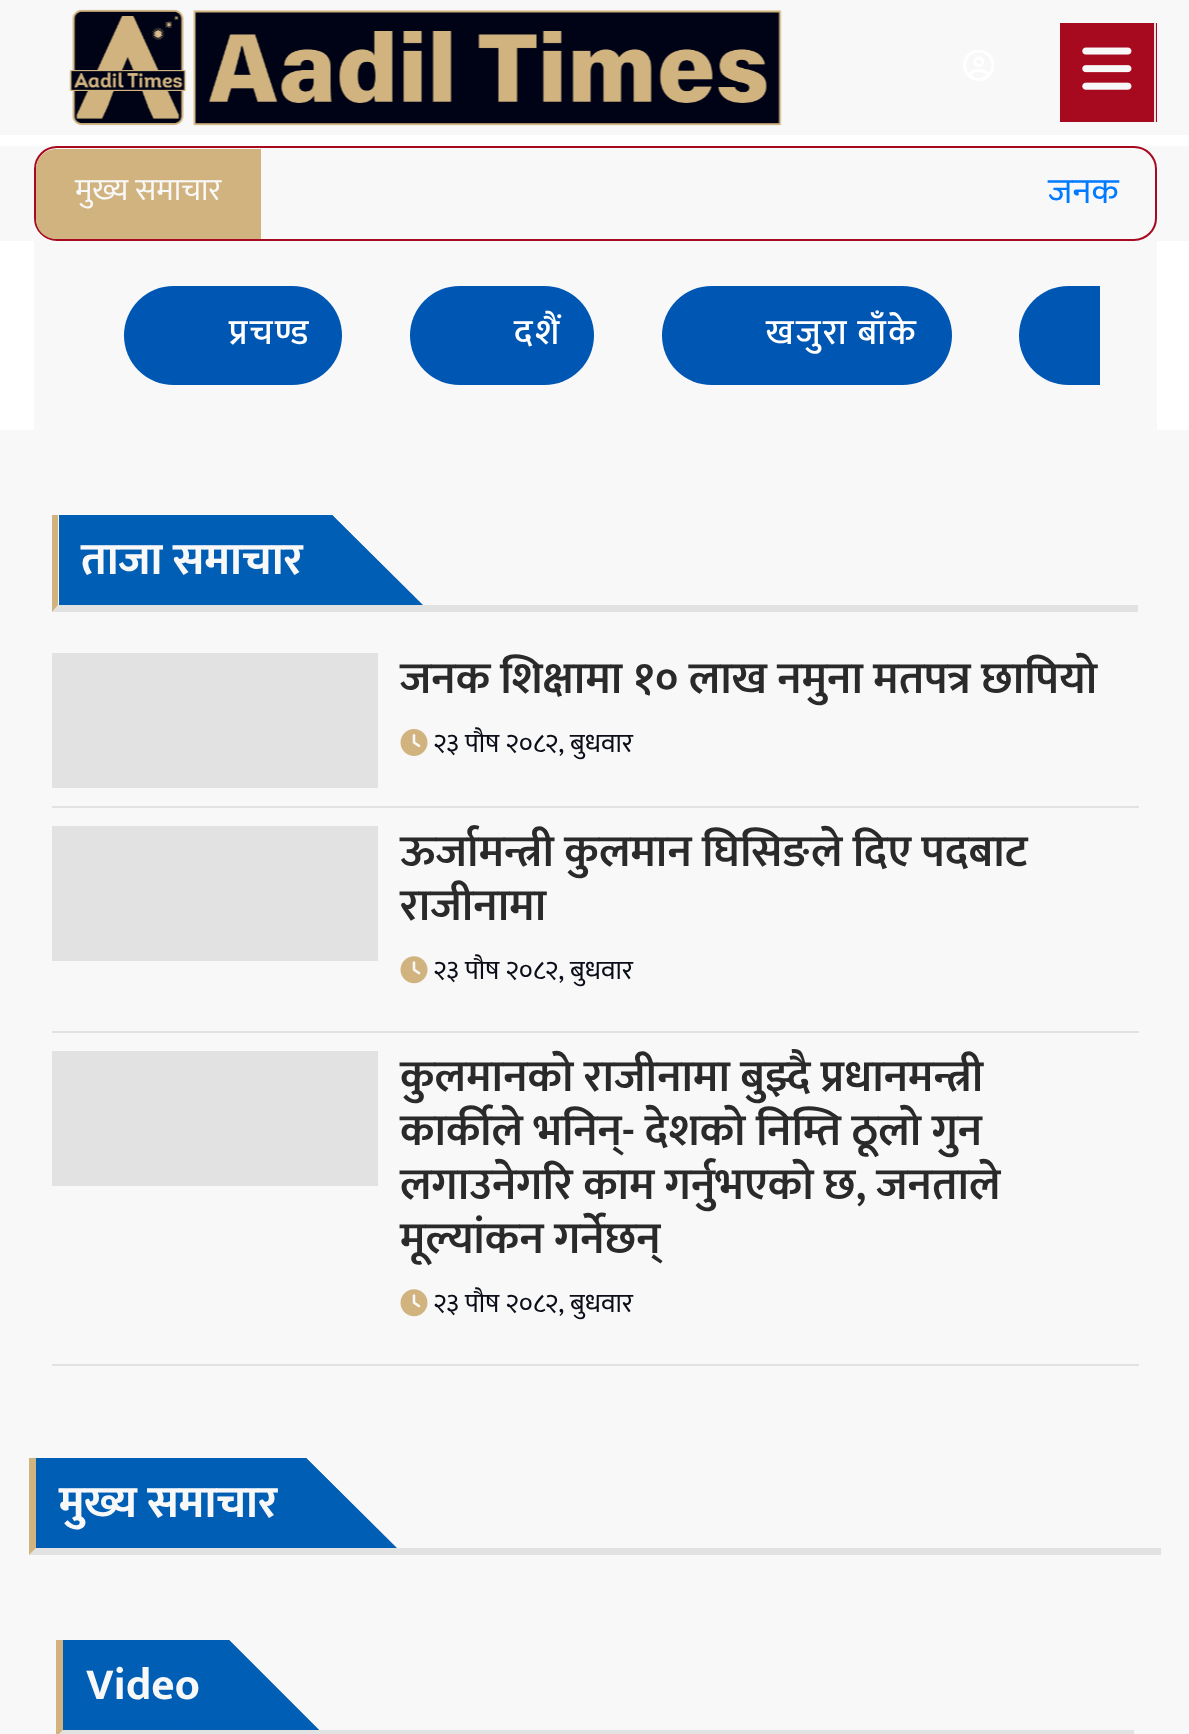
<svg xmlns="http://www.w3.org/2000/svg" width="1189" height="1734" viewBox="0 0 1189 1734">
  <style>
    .t1 { font: 31.5px Mukta; fill: #f8f8f8; }
    .t2 { font: 36px Mukta; fill: #007bff; }
    .t3 { font: 500 36px Mukta; letter-spacing: 2.25px; fill: #fff; }
    .t4 { font: bold 45px Mukta; fill: #f8f8f8; }
    .t5 { font: 600 45px Mukta; fill: #2a2a2a; }
    .t6 { font: 27px Mukta; fill: #0b0e18; }
  </style>
  <defs>
    <clipPath id="clip1"><rect x="59" y="515" width="1080" height="90"/></clipPath>
    <clipPath id="clip2"><rect x="36" y="1458" width="1125" height="90"/></clipPath>
    <clipPath id="clip3"><rect x="63" y="1640" width="1071" height="90"/></clipPath>
  </defs>
  <rect width="100%" height="100%" fill="#fff"/>
  <rect x="0" y="0" width="1189" height="135" fill="#f8f8f8"/>
  <image x="69" y="9" width="713" height="117" href="images/1.png"/>
  <image x="963" y="50" width="31" height="31" href="images/2.png"/>
  <rect x="1060" y="23" width="97" height="99" fill="#a7091f"/>
  <rect x="1154" y="23" width="2" height="99" fill="#e2e2e2"/>
  <image x="1082" y="47" width="50" height="43" href="images/3.png"/>
  <rect x="0" y="146" width="1189" height="95" fill="#f8f8f8"/>
  <rect x="35" y="147" width="1121" height="93" rx="22" fill="none" stroke="#a7091f" stroke-width="2"/>
  <path d="M56 149H261V239H56C45 239 36 230 36 219V169C36 158 45 149 56 149Z" fill="#d1b37f"/>
  <text x="75" y="200" class="t1">मुख्य समाचार</text>
  <text x="1048" y="203" class="t2">जनक</text>
  <rect x="34" y="241" width="1123" height="189" fill="#f8f8f8"/>
  <rect x="124" y="286" width="218" height="99" rx="49.5" fill="#0056b3"/>
  <text x="229" y="344" class="t3">प्रचण्ड</text>
  <rect x="410" y="286" width="184" height="99" rx="49.5" fill="#0056b3"/>
  <text x="514" y="344" class="t3">दशैं</text>
  <rect x="662" y="286" width="290" height="99" rx="49.5" fill="#0056b3"/>
  <text x="766" y="344" word-spacing="-2" class="t3">खजुरा बाँके</text>
  <path d="M1068.5 286H1100V385H1068.5C1041 385 1019 363 1019 335.5C1019 308 1041 286 1068.5 286Z" fill="#0056b3"/>
  <rect x="0" y="430" width="1189" height="1304" fill="#f8f8f8"/>
  <path d="M1138 612H52L58 605H1138Z" fill="#e2e2e2"/>
  <path d="M52 612V515H58V605Z" fill="#d1b37f"/>
  <rect x="59" y="515" width="263" height="90" fill="#005eb5"/>
  <g clip-path="url(#clip1)">
    <path d="M264 573L327 510L455 637L391 701Z" fill="#005eb5"/>
  </g>
  <text x="81" y="574" class="t4">ताजा समाचार</text>
  <g clip-path="url(#clip1)">
    <path d="M321 516L327 510L455 637L448 643Z" fill="#005eb5"/>
  </g>
  <rect x="52" y="806" width="1087" height="2" fill="#e2e2e2"/>
  <rect x="52" y="653" width="326" height="135" fill="#e2e2e2"/>
  <text x="400" y="693" class="t5">जनक शिक्षामा १० लाख नमुना मतपत्र छापियो</text>
  <image x="400" y="729" width="28" height="27" href="images/4.png"/>
  <text x="433" y="752" class="t6">२३ पौष २०८२, बुधवार</text>
  <rect x="52" y="1031" width="1087" height="2" fill="#e2e2e2"/>
  <rect x="52" y="826" width="326" height="135" fill="#e2e2e2"/>
  <text x="400" y="866" class="t5">ऊर्जामन्त्री कुलमान घिसिङले दिए पदबाट</text>
  <text x="400" y="920" class="t5">राजीनामा</text>
  <image x="400" y="956" width="28" height="28" href="images/5.png"/>
  <text x="433" y="979" class="t6">२३ पौष २०८२, बुधवार</text>
  <rect x="52" y="1364" width="1087" height="2" fill="#e2e2e2"/>
  <rect x="52" y="1051" width="326" height="135" fill="#e2e2e2"/>
  <text x="400" y="1091" class="t5">कुलमानको राजीनामा बुझ्दै प्रधानमन्त्री</text>
  <text x="400" y="1145" class="t5">कार्कीले भनिन्- देशको निम्ति ठूलो गुन</text>
  <text x="400" y="1199" class="t5">लगाउनेगरि काम गर्नुभएको छ, जनताले</text>
  <text x="400" y="1253" class="t5">मूल्यांकन गर्नेछन्</text>
  <image x="400" y="1289" width="28" height="28" href="images/5.png"/>
  <text x="433" y="1312" class="t6">२३ पौष २०८२, बुधवार</text>
  <path d="M1161 1555H29L36 1548H1161Z" fill="#e2e2e2"/>
  <path d="M29 1555V1458H36V1548Z" fill="#d1b37f"/>
  <rect x="36" y="1458" width="260" height="90" fill="#005eb5"/>
  <g clip-path="url(#clip2)">
    <path d="M238 1516L301 1453L429 1580L365 1643Z" fill="#005eb5"/>
  </g>
  <text x="59" y="1517" class="t4">मुख्य समाचार</text>
  <g clip-path="url(#clip2)">
    <path d="M295 1459L301 1453L429 1580L422 1586Z" fill="#005eb5"/>
  </g>
  <path d="M1134 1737H56L63 1730H1134Z" fill="#e2e2e2"/>
  <path d="M56 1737V1640H63V1730Z" fill="#d1b37f"/>
  <rect x="63" y="1640" width="156" height="90" fill="#005eb5"/>
  <g clip-path="url(#clip3)">
    <path d="M160 1698L224 1635L351 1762L287 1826Z" fill="#005eb5"/>
  </g>
  <text x="86" y="1699" class="t4">Video</text>
  <g clip-path="url(#clip3)">
    <path d="M217 1641L224 1635L351 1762L345 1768Z" fill="#005eb5"/>
  </g>
</svg>
